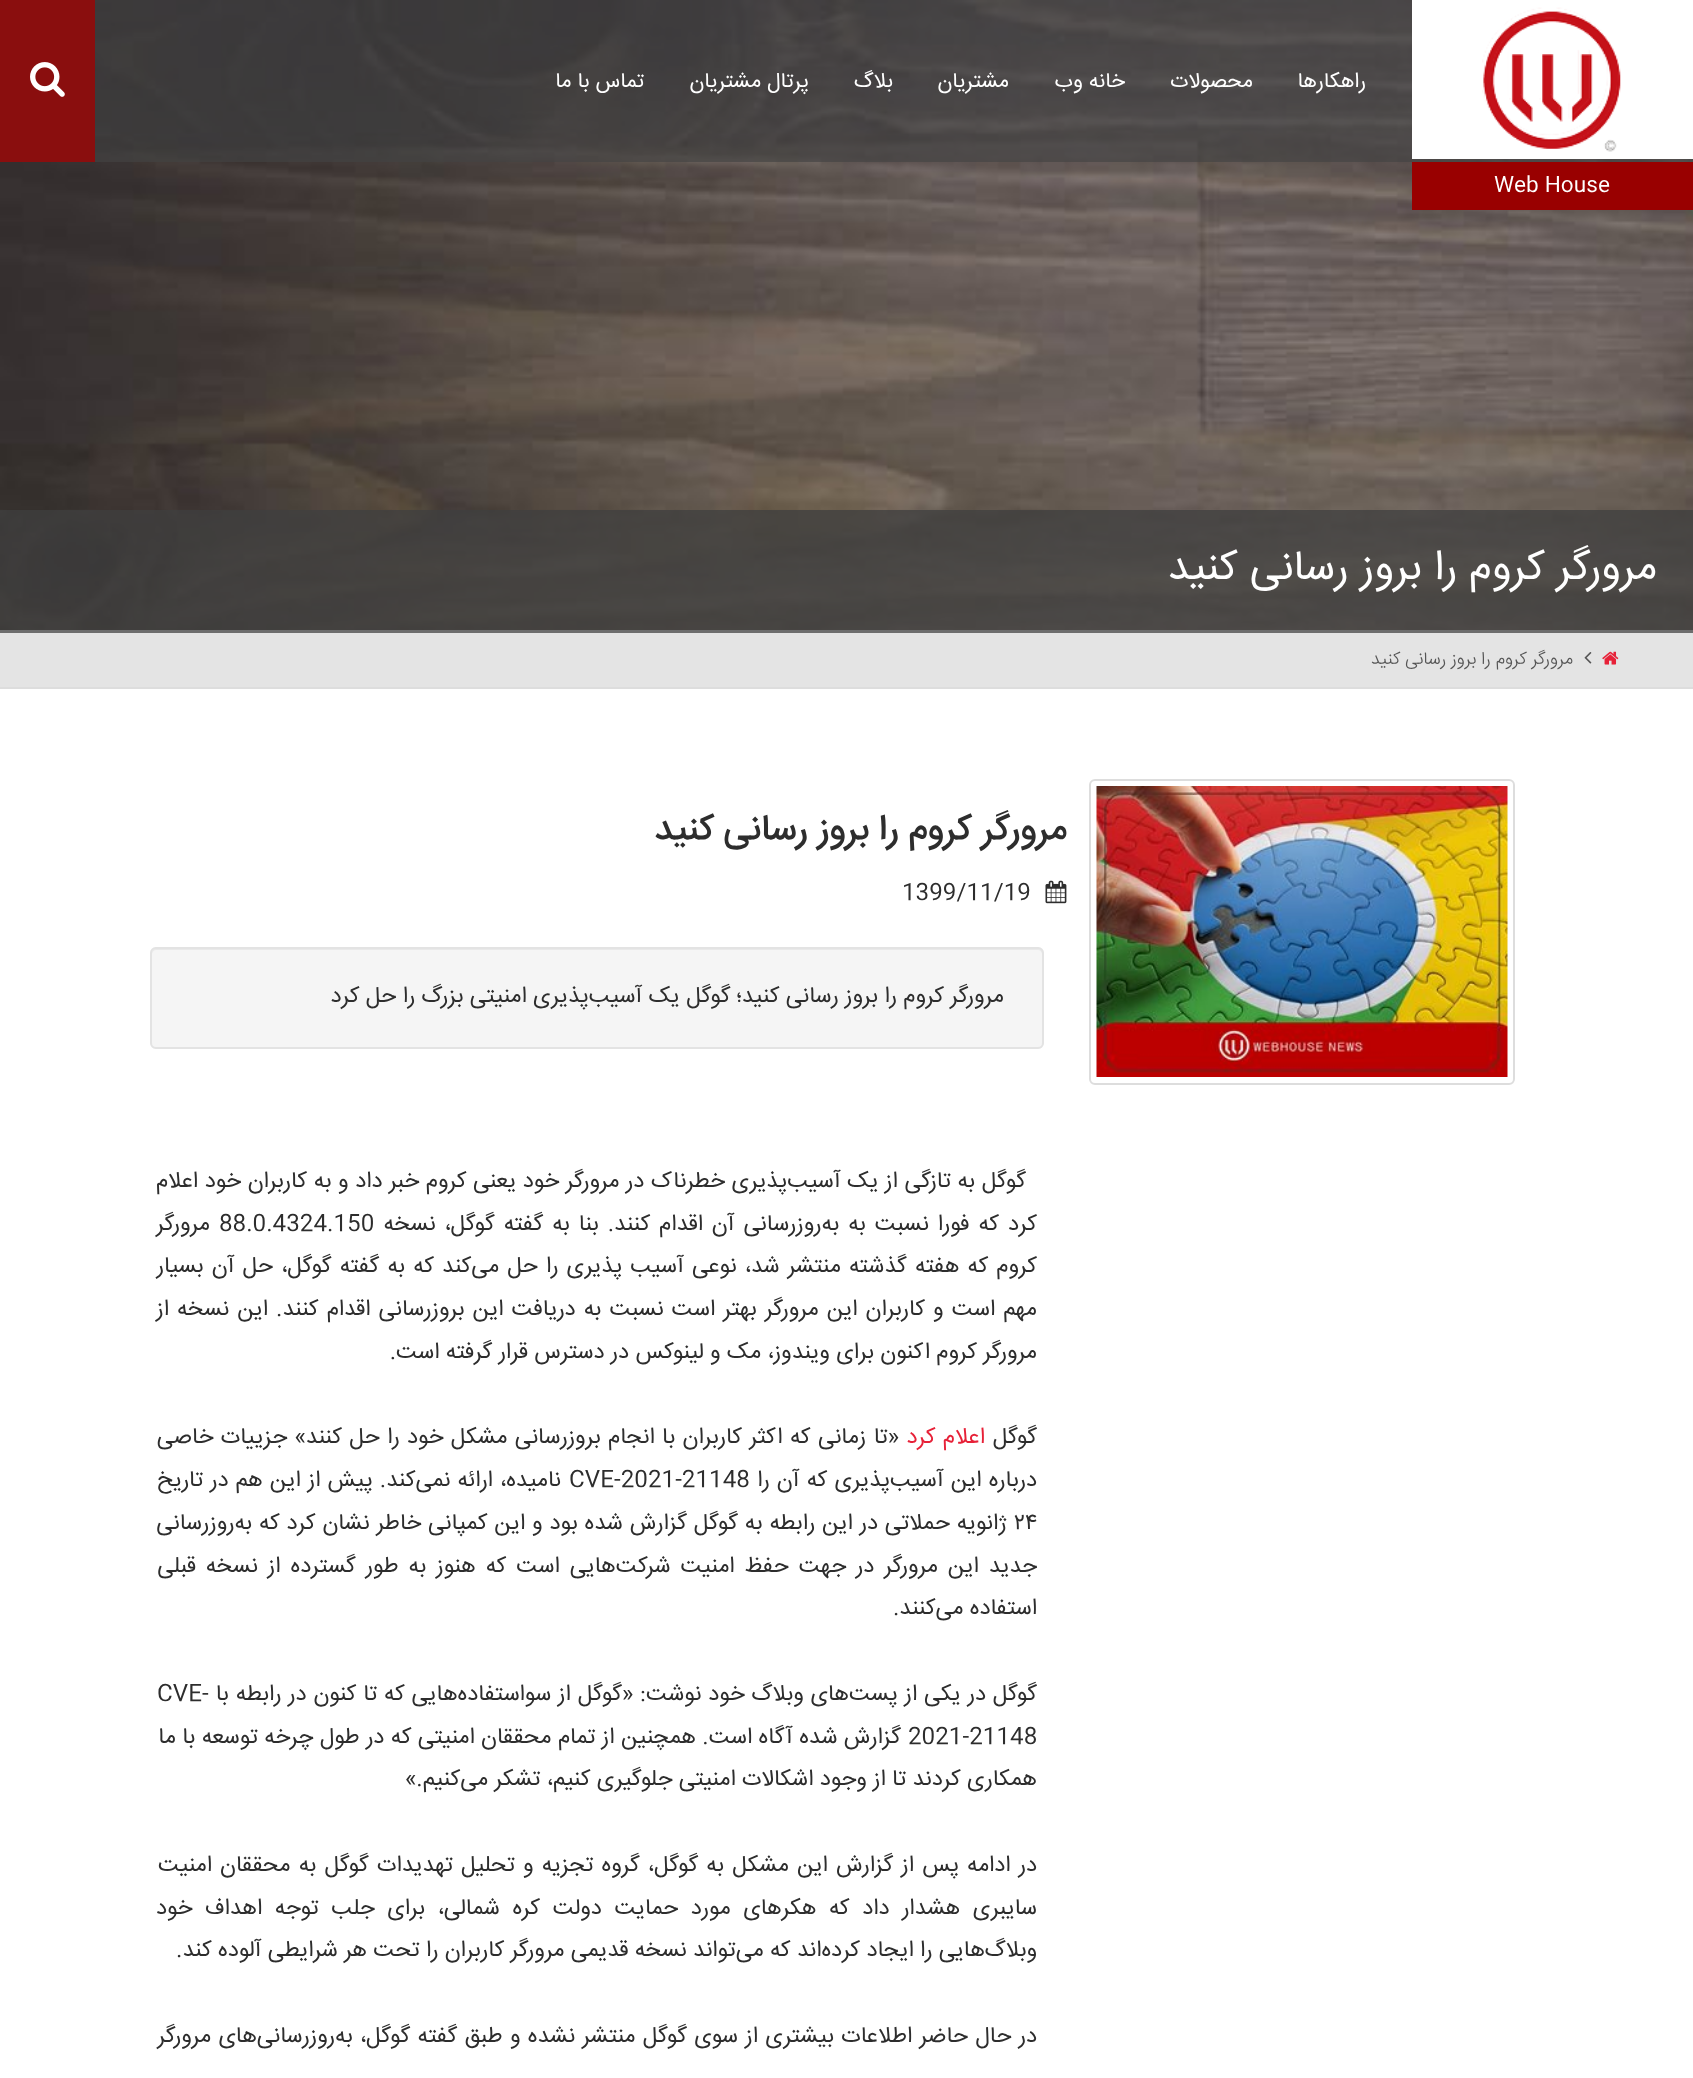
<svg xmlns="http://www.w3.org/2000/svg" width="1693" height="2078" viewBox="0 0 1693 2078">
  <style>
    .t1 { font: 21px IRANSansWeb; direction: rtl; fill: #fff; }
    .t2 { font: 21px IRANSansWeb; fill: #fff; }
    .t3 { font: 42px IRANSansWeb; direction: rtl; fill: #fff; }
    .t4 { font: 300 17.8px IRANSansWeb; direction: rtl; fill: #555; }
    .t5 { font: 500 36px IRANSansWeb; direction: rtl; fill: #2d2d2d; }
    .t6 { font: 22.5px IRANSansWeb; fill: #2d2d2d; }
    .t7 { font: 22.5px IRANSansWeb; direction: rtl; fill: #2d2d2d; }
    .t8 { font: 22.5px IRANSansWeb; direction: rtl; fill: #e72138; }
  </style>
  <rect width="100%" height="100%" fill="#fff"/>
  <image x="0" y="0" width="1693" height="630" href="images/1.png"/>
  <rect x="95" y="0" width="1598" height="162" fill="#444343a3"/>
  <text x="1366" y="87" class="t1">راهکارها</text>
  <text x="1253" y="87" class="t1">محصولات</text>
  <text x="1125" y="87" class="t1">خانه وب</text>
  <text x="1009" y="87" class="t1">مشتریان</text>
  <text x="893" y="87" class="t1">بلاگ</text>
  <text x="809" y="87" class="t1">پرتال مشتریان</text>
  <text x="644" y="87" class="t1">تماس با ما</text>
  <rect x="0" y="0" width="95" height="162" fill="#8a0e0e"/>
  <image x="30" y="62" width="35" height="35" href="images/2.png"/>
  <rect x="1412" y="0" width="281" height="159" fill="#fff"/>
  <image x="1482" y="7" width="139" height="145" href="images/3.png"/>
  <rect x="1412" y="162" width="281" height="48" fill="#900"/>
  <text x="1494" y="191" class="t2">Web House</text>
  <rect x="0" y="510" width="1693" height="123" fill="#3f3f3fc2"/>
  <text x="1657" y="579" class="t3">مرورگر کروم را بروز رسانی کنید</text>
  <rect x="0" y="633" width="1693" height="54" fill="#e4e4e4"/>
  <rect x="0" y="687" width="1693" height="2" fill="#ddd"/>
  <image x="1602" y="651" width="17" height="14" href="images/4.png"/>
  <image x="1584" y="652" width="8" height="12" href="images/5.png"/>
  <text x="1573" y="664" class="t4">مرورگر کروم را بروز رسانی کنید</text>
  <rect x="1090" y="780" width="424" height="304" rx="5" fill="none" stroke="#ddd" stroke-width="2"/>
  <image x="1096" y="786" width="412" height="291" href="images/6.png"/>
  <text x="1067" y="839" class="t5">مرورگر کروم را بروز رسانی کنید</text>
  <image x="1045" y="880" width="22" height="24" href="images/7.png"/>
  <text x="902" y="899" class="t6">1399/11/19</text>
  <rect x="150" y="947" width="894" height="102" rx="6" fill="#f5f5f5"/>
  <path d="M156 950H1038C1040 950 1042 952 1042 954V1045C1043 1044 1043 1043 1043 1042V953C1043 950 1041 948 1038 948H157C154 948 152 950 152 953V954C152 952 154 950 156 950Z" fill="#e9e9e9"/>
  <rect x="151" y="948" width="892" height="100" rx="5" fill="none" stroke="#e3e3e3" stroke-width="2"/>
  <text x="1004" y="1002" class="t7">مرورگر کروم را بروز رسانی کنید؛ گوگل یک آسیب‌پذیری امنیتی بزرگ را حل کرد</text>
  <text x="1026" y="1187" word-spacing="0.25" class="t7">گوگل به تازگی از یک آسیب‌پذیری خطرناک در مرورگر خود یعنی کروم خبر داد و به کاربران خود اعلام</text>
  <text x="1037" y="1230" word-spacing="2.5" class="t7">کرد که فورا نسبت به به‌روزرسانی آن اقدام کنند. بنا به گفته‌ گوگل، نسخه</text>
  <text x="219" y="1230" class="t6">88.0.4324.150</text>
  <text x="210" y="1230" class="t7">مرورگر</text>
  <text x="1037" y="1272" word-spacing="1.75" class="t7">کروم که هفته گذشته منتشر شد، نوعی آسیب پذیری را حل می‌کند که به گفته گوگل، حل آن بسیار</text>
  <text x="1037" y="1315" word-spacing="1.7" class="t7">مهم است و کاربران این مرورگر بهتر است نسبت به دریافت این بروزرسانی اقدام کنند. این نسخه از</text>
  <text x="1037" y="1358" class="t7">مرورگر کروم اکنون برای ویندوز، مک و لینوکس در دسترس قرار گرفته است.</text>
  <text x="1037" y="1443" class="t7">گوگل</text>
  <text x="985" y="1443" word-spacing="1" class="t8">اعلام کرد</text>
  <text x="899" y="1443" word-spacing="1" class="t7">«تا زمانی که اکثر کاربران با انجام بروزرسانی مشکل خود را حل کنند» جزییات خاصی</text>
  <text x="1037" y="1486" word-spacing="0.75" class="t7">درباره این آسیب‌پذیری که آن را</text>
  <text x="569" y="1486" class="t6">CVE-2021-21148</text>
  <text x="561" y="1486" word-spacing="0.75" class="t7">نامیده، ارائه نمی‌کند. پیش از این هم در تاریخ</text>
  <text x="1014" y="1529" class="t6">۲۴</text>
  <text x="1007" y="1529" word-spacing="0.5" class="t7">ژانویه حملاتی در این رابطه به گوگل گزارش شده بود و این کمپانی خاطر نشان کرد که به‌روزرسانی</text>
  <text x="1037" y="1572" word-spacing="3.6" class="t7">جدید این مرورگر در جهت حفظ امنیت شرکت‌هایی است که هنوز به طور گسترده از نسخه‌ قبلی</text>
  <text x="1037" y="1614" class="t7">استفاده می‌کنند.</text>
  <text x="1037" y="1700" word-spacing="0.5" class="t7">گوگل در یکی از پست‌های وبلاگ خود نوشت: «گوگل از سواستفاده‌هایی که تا کنون در رابطه با</text>
  <text x="157" y="1700" class="t6">CVE-</text>
  <text x="908" y="1743" class="t6">2021-21148</text>
  <text x="901" y="1743" class="t7">گزارش شده آگاه است. همچنین از تمام محققان امنیتی که در طول چرخه توسعه با ما</text>
  <text x="1037" y="1785" class="t7">همکاری کردند تا از وجود اشکالات امنیتی جلوگیری کنیم، تشکر می‌کنیم.»</text>
  <text x="1037" y="1871" word-spacing="1.8" class="t7">در ادامه پس از گزارش این مشکل به گوگل، گروه تجزیه و تحلیل تهدیدات گوگل به محققان امنیت</text>
  <text x="1037" y="1914" word-spacing="6.25" class="t7">سایبری هشدار داد که هکرهای مورد حمایت دولت کره شمالی، برای جلب توجه اهداف خود</text>
  <text x="1037" y="1956" class="t7">وبلاگ‌هایی را ایجاد کرده‌اند که می‌تواند نسخه قدیمی مرورگر کاربران را تحت هر شرایطی آلوده کند.</text>
  <text x="1037" y="2042" word-spacing="0.9" class="t7">در حال حاضر اطلاعات بیشتری از سوی گوگل منتشر نشده و طبق گفته گوگل، به‌روزرسانی‌های مرورگر</text>
</svg>
